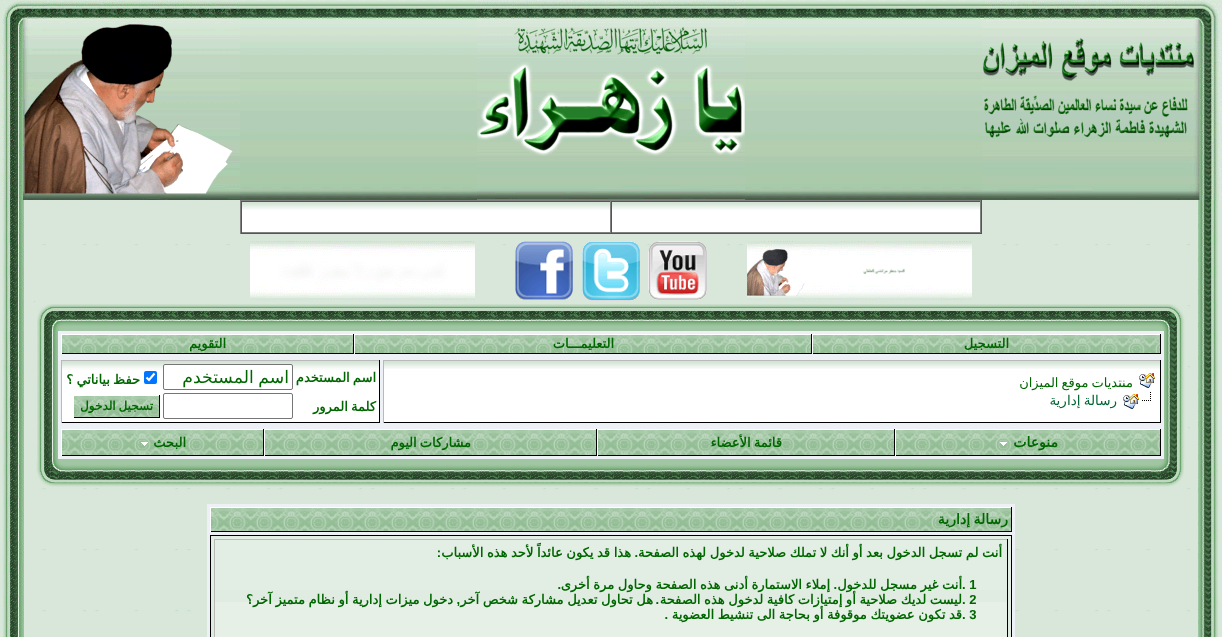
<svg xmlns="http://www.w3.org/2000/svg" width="1222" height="637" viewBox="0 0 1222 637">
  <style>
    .t1 { font: bold 13px DejaVu Sans; direction: rtl; fill: #060; }
    .t2 { font: 13px DejaVu Sans; direction: rtl; fill: #060; }
    .t3 { font: 13.5px DejaVu Sans; direction: rtl; fill: #063; }
    .t4 { font: 17.25px DejaVu Sans; direction: rtl; fill: #060; }
    .t5 { font: bold 12px DejaVu Sans; direction: rtl; fill: #060; }
    .t6 { font: bold 14px DejaVu Sans; direction: rtl; fill: #060; }
    .t7 { font: bold 13px Liberation Sans; direction: rtl; fill: #060; }
    .t8 { font: bold 13px Liberation Sans; fill: #060; }
  </style>
  <rect width="100%" height="100%" fill="#fff"/>
  <image x="0" y="200" width="1222" height="437" href="images/1.png"/>
  <image x="982" y="0" width="240" height="200" href="images/2.png"/>
  <image x="240" y="0" width="742" height="200" href="images/3.png"/>
  <image x="477" y="0" width="268" height="200" href="images/4.png"/>
  <image x="0" y="0" width="240" height="200" href="images/5.png"/>
  <image x="1198" y="200" width="21" height="437" href="images/6.png"/>
  <image x="2" y="200" width="22" height="437" href="images/7.png"/>
  <rect x="240" y="200" width="742" height="1" fill="#808080"/>
  <rect x="981" y="200" width="1" height="34" fill="#555"/>
  <rect x="240" y="233" width="742" height="1" fill="#555"/>
  <rect x="240" y="200" width="1" height="34" fill="#808080"/>
  <rect x="612" y="210" width="368" height="22" fill="#fff"/>
  <image x="612" y="202" width="368" height="8" href="images/8.png"/>
  <rect x="241" y="201" width="740" height="1" fill="#555"/>
  <rect x="980" y="201" width="1" height="32" fill="#808080"/>
  <rect x="611" y="232" width="370" height="1" fill="#808080"/>
  <rect x="611" y="201" width="1" height="32" fill="#555"/>
  <rect x="242" y="210" width="368" height="22" fill="#fff"/>
  <image x="242" y="202" width="368" height="8" href="images/8.png"/>
  <rect x="610" y="201" width="1" height="32" fill="#808080"/>
  <rect x="241" y="232" width="370" height="1" fill="#808080"/>
  <rect x="241" y="201" width="1" height="32" fill="#555"/>
  <image x="747" y="241" width="225" height="60" href="images/9.png"/>
  <image x="648" y="241" width="59" height="59" href="images/10.png"/>
  <image x="582" y="241" width="58" height="60" href="images/11.png"/>
  <image x="515" y="241" width="58" height="59" href="images/12.png"/>
  <image x="250" y="241" width="225" height="60" href="images/13.png"/>
  <rect x="34" y="301" width="1" height="1" fill="#a6eda7"/>
  <image x="1141" y="304" width="47" height="27" href="images/14.png"/>
  <image x="81" y="304" width="1060" height="27" href="images/15.png"/>
  <image x="37" y="304" width="44" height="27" href="images/16.png"/>
  <image x="1164" y="331" width="24" height="128" href="images/17.png"/>
  <image x="1168" y="387" width="9" height="17" href="images/18.png"/>
  <rect x="58" y="331" width="1106" height="128" fill="#edf1f6"/>
  <image x="813" y="335" width="347" height="18" href="images/19.png"/>
  <rect x="61" y="334" width="1100" height="1" fill="#fff"/>
  <rect x="1160" y="334" width="1" height="20" fill="#000"/>
  <rect x="812" y="353" width="349" height="1" fill="#000"/>
  <rect x="812" y="334" width="1" height="20" fill="#fff"/>
  <text x="1009" y="348" class="t1">التسجيل</text>
  <image x="355" y="335" width="456" height="18" href="images/20.png"/>
  <rect x="811" y="334" width="1" height="20" fill="#000"/>
  <rect x="354" y="353" width="458" height="1" fill="#000"/>
  <rect x="354" y="334" width="1" height="20" fill="#fff"/>
  <text x="614" y="348" class="t1">التعليمـــات</text>
  <image x="62" y="335" width="291" height="18" href="images/21.png"/>
  <rect x="353" y="334" width="1" height="20" fill="#000"/>
  <rect x="61" y="353" width="293" height="1" fill="#000"/>
  <rect x="61" y="334" width="1" height="20" fill="#fff"/>
  <text x="226" y="348" class="t1">التقويم</text>
  <rect x="384" y="369" width="776" height="53" fill="#fff"/>
  <image x="384" y="361" width="776" height="8" href="images/22.png"/>
  <rect x="383" y="360" width="778" height="1" fill="#b9b9b9"/>
  <rect x="1160" y="360" width="1" height="63" fill="#000"/>
  <rect x="383" y="422" width="778" height="1" fill="#000"/>
  <rect x="383" y="360" width="1" height="63" fill="#b9b9b9"/>
  <image x="1139" y="373" width="16" height="15" href="images/23.png"/>
  <text x="1133" y="387" word-spacing="-1" class="t2">منتديات موقع الميزان</text>
  <image x="1123" y="392" width="28" height="17" href="images/24.png"/>
  <text x="1117" y="405" word-spacing="-1" class="t3">رسالة إدارية</text>
  <rect x="62" y="370" width="317" height="52" fill="#fff"/>
  <image x="62" y="361" width="317" height="9" href="images/25.png"/>
  <rect x="61" y="360" width="319" height="1" fill="#b9b9b9"/>
  <rect x="379" y="360" width="1" height="63" fill="#000"/>
  <rect x="61" y="422" width="319" height="1" fill="#000"/>
  <rect x="61" y="360" width="1" height="63" fill="#b9b9b9"/>
  <text x="376" y="382" word-spacing="-1" class="t1">اسم المستخدم</text>
  <rect x="163.5" y="364.5" width="129" height="25" rx="1.5" fill="#fff" stroke="#767676"/>
  <text x="289" y="383" word-spacing="-1" class="t4">اسم المستخدم</text>
  <rect x="144" y="371" width="13" height="13" rx="2" fill="#0075ff"/>
  <path d="M146.5 377.5L149 380L154.5 373.5" fill="none" stroke="#fff" stroke-width="2.1"/>
  <text x="140" y="384" word-spacing="-1" class="t1">حفظ بياناتي ؟</text>
  <text x="376" y="411" word-spacing="-1" class="t1">كلمة المرور</text>
  <rect x="163.5" y="393.5" width="129" height="25" rx="1.5" fill="none" stroke="#767676"/>
  <image x="74" y="396" width="85" height="21" href="images/26.png"/>
  <rect x="159" y="395" width="1" height="23" fill="#000"/>
  <rect x="73" y="417" width="87" height="1" fill="#000"/>
  <rect x="73" y="417" width="1" height="1" fill="#fff"/>
  <text x="153" y="410" word-spacing="-1" class="t5">تسجيل الدخول</text>
  <image x="896" y="430" width="264" height="25" href="images/27.png"/>
  <rect x="61" y="429" width="1100" height="1" fill="#fff"/>
  <rect x="1160" y="429" width="1" height="27" fill="#000"/>
  <rect x="895" y="455" width="266" height="1" fill="#000"/>
  <rect x="895" y="429" width="1" height="27" fill="#fff"/>
  <text x="1058" y="447" class="t6">منوعات</text>
  <image x="1000" y="442" width="7" height="4" href="images/28.png"/>
  <image x="598" y="430" width="296" height="25" href="images/29.png"/>
  <rect x="894" y="429" width="1" height="27" fill="#000"/>
  <rect x="597" y="455" width="298" height="1" fill="#000"/>
  <rect x="597" y="429" width="1" height="27" fill="#fff"/>
  <text x="782" y="447" word-spacing="-1" class="t1">قائمة الأعضاء</text>
  <image x="265" y="430" width="331" height="25" href="images/30.png"/>
  <rect x="596" y="429" width="1" height="27" fill="#000"/>
  <rect x="264" y="455" width="333" height="1" fill="#000"/>
  <rect x="264" y="429" width="1" height="27" fill="#fff"/>
  <text x="471" y="447" word-spacing="-1" class="t1">مشاركات اليوم</text>
  <image x="62" y="430" width="201" height="25" href="images/31.png"/>
  <rect x="263" y="429" width="1" height="27" fill="#000"/>
  <rect x="61" y="455" width="203" height="1" fill="#000"/>
  <rect x="61" y="429" width="1" height="27" fill="#fff"/>
  <text x="186" y="447" class="t1">البحث</text>
  <image x="141" y="442" width="7" height="4" href="images/32.png"/>
  <image x="37" y="331" width="21" height="128" href="images/33.png"/>
  <image x="44" y="387" width="10" height="17" href="images/34.png"/>
  <image x="1141" y="459" width="43" height="28" href="images/35.png"/>
  <image x="81" y="459" width="1060" height="28" href="images/36.png"/>
  <image x="36" y="459" width="45" height="28" href="images/37.png"/>
  <rect x="207" y="504" width="808" height="133" fill="#edf1f6"/>
  <image x="211" y="508" width="800" height="23" href="images/38.png"/>
  <rect x="210" y="507" width="802" height="1" fill="#fff"/>
  <rect x="1011" y="507" width="1" height="25" fill="#000"/>
  <rect x="210" y="531" width="802" height="1" fill="#000"/>
  <rect x="210" y="507" width="1" height="25" fill="#fff"/>
  <text x="1008" y="524" word-spacing="-1" class="t6">رسالة إدارية</text>
  <image x="211" y="536" width="800" height="101" href="images/39.png"/>
  <rect x="210.5" y="535.5" width="801" height="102" fill="none" stroke="#000"/>
  <rect x="215" y="602" width="792" height="35" fill="#e6f0e7"/>
  <rect x="214" y="539" width="794" height="1" fill="#b9b9b9"/>
  <rect x="1007" y="539" width="1" height="98" fill="#000"/>
  <rect x="214" y="539" width="1" height="98" fill="#b9b9b9"/>
  <text x="1002" y="557" word-spacing="-0.5" class="t1">أنت لم تسجل الدخول بعد أو أنك لا تملك صلاحية لدخول لهذه الصفحة</text>
  <text x="638" y="557" class="t7">.</text>
  <text x="631" y="557" word-spacing="-0.5" class="t1">هذا قد يكون عائداً لأحد هذه الأسباب</text>
  <text x="441" y="557" class="t7">:</text>
  <text x="962" y="589" class="t8">. 1</text>
  <text x="962" y="589" word-spacing="-0.5" class="t1">أنت غير مسجل للدخول</text>
  <text x="837" y="589" class="t7">.</text>
  <text x="830" y="589" word-spacing="-0.5" class="t1">إملاء الاستمارة أدنى هذه الصفحة وحاول مرة أخرى</text>
  <text x="561" y="589" class="t7">.</text>
  <text x="962" y="604" class="t8">. 2</text>
  <text x="962" y="604" word-spacing="-0.5" class="t1">ليست لديك صلاحية أو إمتيازات كافية لدخول هذه الصفحة</text>
  <text x="659" y="604" class="t7">.</text>
  <text x="653" y="604" word-spacing="-0.5" class="t1">هل تحاول تعديل مشاركة شخص آخر</text>
  <text x="460" y="604" class="t7">,</text>
  <text x="453" y="604" word-spacing="-0.5" class="t1">دخول ميزات إدارية أو نظام متميز آخر؟</text>
  <text x="962" y="619" class="t8">. 3</text>
  <text x="962" y="619" word-spacing="-0.5" class="t1">قد تكون عضويتك موقوفة أو بحاجة الى تنشيط العضوية</text>
  <text x="668" y="619" class="t7">.</text>
</svg>
